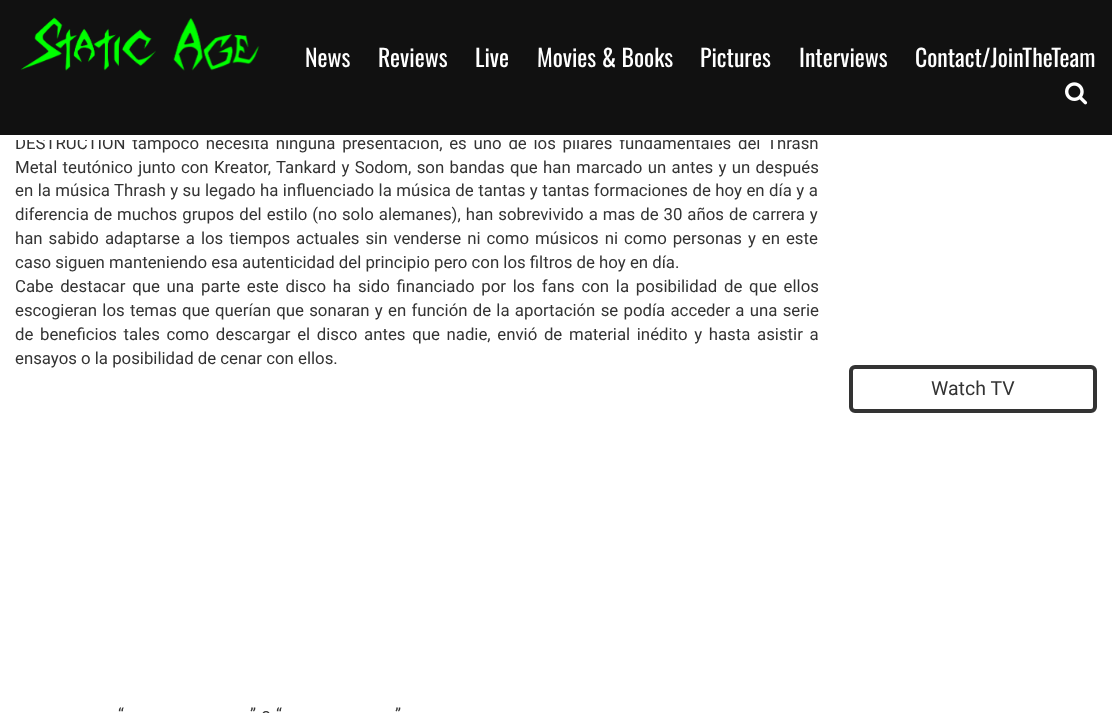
<svg xmlns="http://www.w3.org/2000/svg" width="1112" height="713" viewBox="0 0 1112 713">
  <style>
    .t1 { font: 16.8px Roboto; fill: #333; }
    .t2 { font: 23.75px Oswald; fill: #fff; }
    .t3 { font: 19.5px Roboto; fill: #333; }
  </style>
  <rect width="100%" height="100%" fill="#fff"/>
  <rect x="0" y="0" width="1112" height="135" fill="#111"/>
  <text x="15" y="149" word-spacing="2.6" class="t1">DESTRUCTION tampoco necesita ninguna presentación, es uno de los pilares fundamentales del Thrash</text>
  <rect x="16" y="136" width="797" height="4" fill="#fff"/>
  <image x="20" y="17" width="240" height="54" href="images/1.png"/>
  <text x="305" y="67" class="t2">News</text>
  <text x="378" y="67" class="t2">Reviews</text>
  <text x="475" y="67" class="t2">Live</text>
  <text x="537" y="67" class="t2">Movies &amp; Books</text>
  <text x="700" y="67" class="t2">Pictures</text>
  <text x="799" y="67" class="t2">Interviews</text>
  <text x="915" y="67" class="t2">Contact/JoinTheTeam</text>
  <image x="1065" y="82" width="23" height="23" href="images/2.png"/>
  <text x="15" y="173" word-spacing="1.2" class="t1">Metal teutónico junto con Kreator, Tankard y Sodom, son bandas que han marcado un antes y un después</text>
  <text x="15" y="196" word-spacing="0.3" class="t1">en la música Thrash y su legado ha influenciado la música de tantas y tantas formaciones de hoy en día y a</text>
  <text x="15" y="220" word-spacing="0.8" class="t1">diferencia de muchos grupos del estilo (no solo alemanes), han sobrevivido a mas de 30 años de carrera y</text>
  <text x="15" y="244" word-spacing="1.8" class="t1">han sabido adaptarse a los tiempos actuales sin venderse ni como músicos ni como personas y en este</text>
  <text x="15" y="268" class="t1">caso siguen manteniendo esa autenticidad del principio pero con los filtros de hoy en día.</text>
  <text x="15" y="292" word-spacing="2.6" class="t1">Cabe destacar que una parte este disco ha sido financiado por los fans con la posibilidad de que ellos</text>
  <text x="15" y="316" word-spacing="1.1" class="t1">escogieran los temas que querían que sonaran y en función de la aportación se podía acceder a una serie</text>
  <text x="15" y="340" word-spacing="2.5" class="t1">de beneficios tales como descargar el disco antes que nadie, envió de material inédito y hasta asistir a</text>
  <text x="15" y="364" class="t1">ensayos o la posibilidad de cenar con ellos.</text>
  <text x="118" y="720" word-spacing="1" class="t1">“</text>
  <text x="250" y="720" word-spacing="1" class="t1">” o “</text>
  <text x="395" y="720" word-spacing="1" class="t1">”</text>
  <rect x="851" y="367" width="244" height="44" rx="4" fill="none" stroke="#333" stroke-width="4"/>
  <text x="931" y="395" class="t3">Watch TV</text>
</svg>
